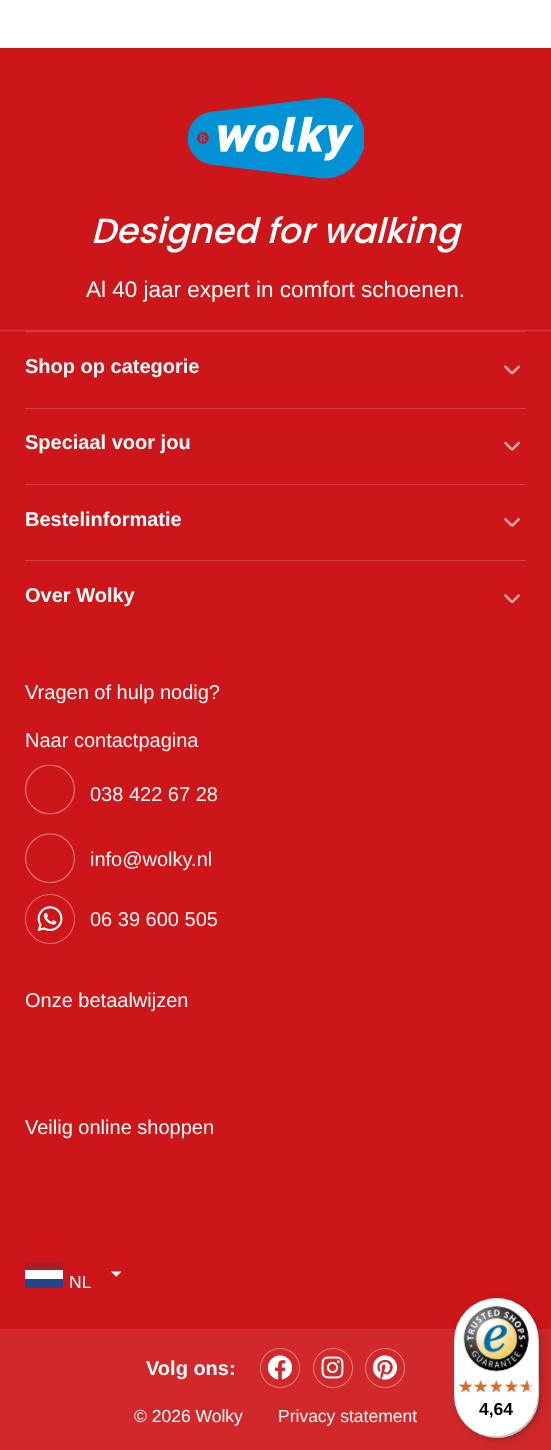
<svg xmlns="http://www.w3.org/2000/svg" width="551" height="1450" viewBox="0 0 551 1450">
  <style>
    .t1 { font: italic 500 35px Poppins; fill: #fff; }
    .t2 { font: 22.5px Liberation Sans; fill: #fff; }
    .t3 { font: bold 20px Liberation Sans; fill: #fff; }
    .t4 { font: 20px Liberation Sans; fill: #fff; }
    .t5 { font: 20px Liberation Sans; fill: #fdf6f6; }
    .t6 { font: 17.5px Liberation Sans; fill: #fff; }
    .t7 { font: 17.5px Liberation Sans; fill: #fdf6f6; }
    .t8 { font: bold 17.5px Liberation Sans; fill: #000; }
  </style>
  <rect width="100%" height="100%" fill="#fff"/>
  <rect x="0" y="48" width="551" height="1281" fill="#cd1619"/>
  <image x="188" y="98" width="176" height="81" href="images/1.png"/>
  <text x="91" y="243" class="t1">Designed for walking</text>
  <text x="86" y="297" class="t2">Al 40 jaar expert in comfort schoenen.</text>
  <rect x="0" y="330" width="551" height="1" fill="#d53b3e"/>
  <rect x="25" y="331" width="501" height="1" fill="#d53b3e"/>
  <text x="25" y="373" class="t3">Shop op categorie</text>
  <image x="504" y="365" width="16" height="10" href="images/2.png"/>
  <rect x="25" y="408" width="501" height="1" fill="#d53b3e"/>
  <text x="25" y="449" class="t3">Speciaal voor jou</text>
  <image x="504" y="441" width="16" height="10" href="images/3.png"/>
  <rect x="25" y="484" width="501" height="1" fill="#d53b3e"/>
  <text x="25" y="526" class="t3">Bestelinformatie</text>
  <image x="504" y="518" width="16" height="9" href="images/4.png"/>
  <rect x="25" y="560" width="501" height="1" fill="#d53b3e"/>
  <text x="25" y="602" class="t3">Over Wolky</text>
  <image x="504" y="594" width="16" height="9" href="images/5.png"/>
  <text x="25" y="699" class="t4">Vragen of hulp nodig?</text>
  <text x="25" y="747" class="t5">Naar contactpagina</text>
  <image x="25" y="764" width="50" height="51" href="images/6.png"/>
  <text x="90" y="801" class="t5">038 422 67 28</text>
  <image x="25" y="833" width="50" height="50" href="images/7.png"/>
  <text x="90" y="866" class="t5">info@wolky.nl</text>
  <image x="25" y="894" width="50" height="50" href="images/8.png"/>
  <text x="90" y="926" class="t5">06 39 600 505</text>
  <text x="25" y="1007" class="t4">Onze betaalwijzen</text>
  <text x="25" y="1134" class="t4">Veilig online shoppen</text>
  <rect x="25" y="1262" width="38" height="8" fill="#ae1c28"/>
  <rect x="25" y="1270" width="38" height="9" fill="#fff"/>
  <image x="111" y="1271" width="11" height="6" href="images/9.png"/>
  <rect x="25" y="1279" width="38" height="9" fill="#21468b"/>
  <text x="69" y="1288" class="t6">NL</text>
  <rect x="0" y="1329" width="551" height="121" fill="#d1292b"/>
  <text x="146" y="1375" class="t3">Volg ons:</text>
  <image x="260" y="1348" width="40" height="40" href="images/10.png"/>
  <image x="313" y="1348" width="40" height="40" href="images/11.png"/>
  <image x="365" y="1348" width="40" height="40" href="images/12.png"/>
  <text x="134" y="1422" class="t6">© 2026 Wolky</text>
  <text x="278" y="1422" class="t7">Privacy statement</text>
  <rect x="458" y="1301" width="85" height="140" rx="42.5" fill="#00000026" filter="blur(5px)"/>
  <rect x="455" y="1299" width="85" height="140" rx="42.5" fill="#00000026" filter="blur(1px)"/>
  <rect x="454" y="1298" width="85" height="140" rx="42.5" fill="#fff"/>
  <path d="M498 1299C508 1299 517 1303 525 1309C517 1302 507 1298 496 1298C473 1298 454 1317 454 1340V1396C454 1408 460 1420 469 1428C460 1420 455 1409 455 1396V1341C455 1318 474 1299 498 1299Z" fill="#0000001a"/>
  <path d="M463 1422C471 1432 483 1438 496 1438C520 1438 539 1419 539 1396V1340C539 1331 536 1323 531 1316C535 1323 538 1330 538 1339V1394C538 1417 518 1436 495 1436C483 1436 471 1431 463 1422Z" fill="#00000033"/>
  <path d="M464 1423C485 1447 523 1441 536 1412C541 1400 539 1382 539 1368C539 1349 542 1328 528 1312C541 1328 538 1348 538 1366C538 1380 540 1398 535 1411C523 1440 485 1446 464 1423Z" fill="#32323233"/>
  <path d="M464 1423C485 1447 523 1441 536 1412C541 1400 539 1382 539 1368C539 1349 542 1328 528 1312C541 1328 538 1348 538 1366C538 1380 540 1398 535 1411C523 1440 485 1446 464 1423Z" fill="#ffffff4d"/>
  <image x="463" y="1306" width="66" height="66" href="images/13.png"/>
  <image x="459" y="1380" width="13" height="13" href="images/19.png"/>
  <image x="458" y="1380" width="15" height="13" href="images/14.png"/>
  <image x="475" y="1380" width="12" height="12" href="images/20.png"/>
  <image x="473" y="1380" width="15" height="13" href="images/15.png"/>
  <image x="490" y="1380" width="12" height="13" href="images/21.png"/>
  <image x="490" y="1380" width="13" height="12" href="images/16.png"/>
  <image x="505" y="1380" width="14" height="12" href="images/22.png"/>
  <image x="505" y="1380" width="13" height="12" href="images/17.png"/>
  <image x="520" y="1380" width="14" height="13" href="images/23.png"/>
  <image x="520" y="1380" width="9" height="13" href="images/18.png"/>
  <text x="479" y="1415" class="t8">4,64</text>
</svg>
